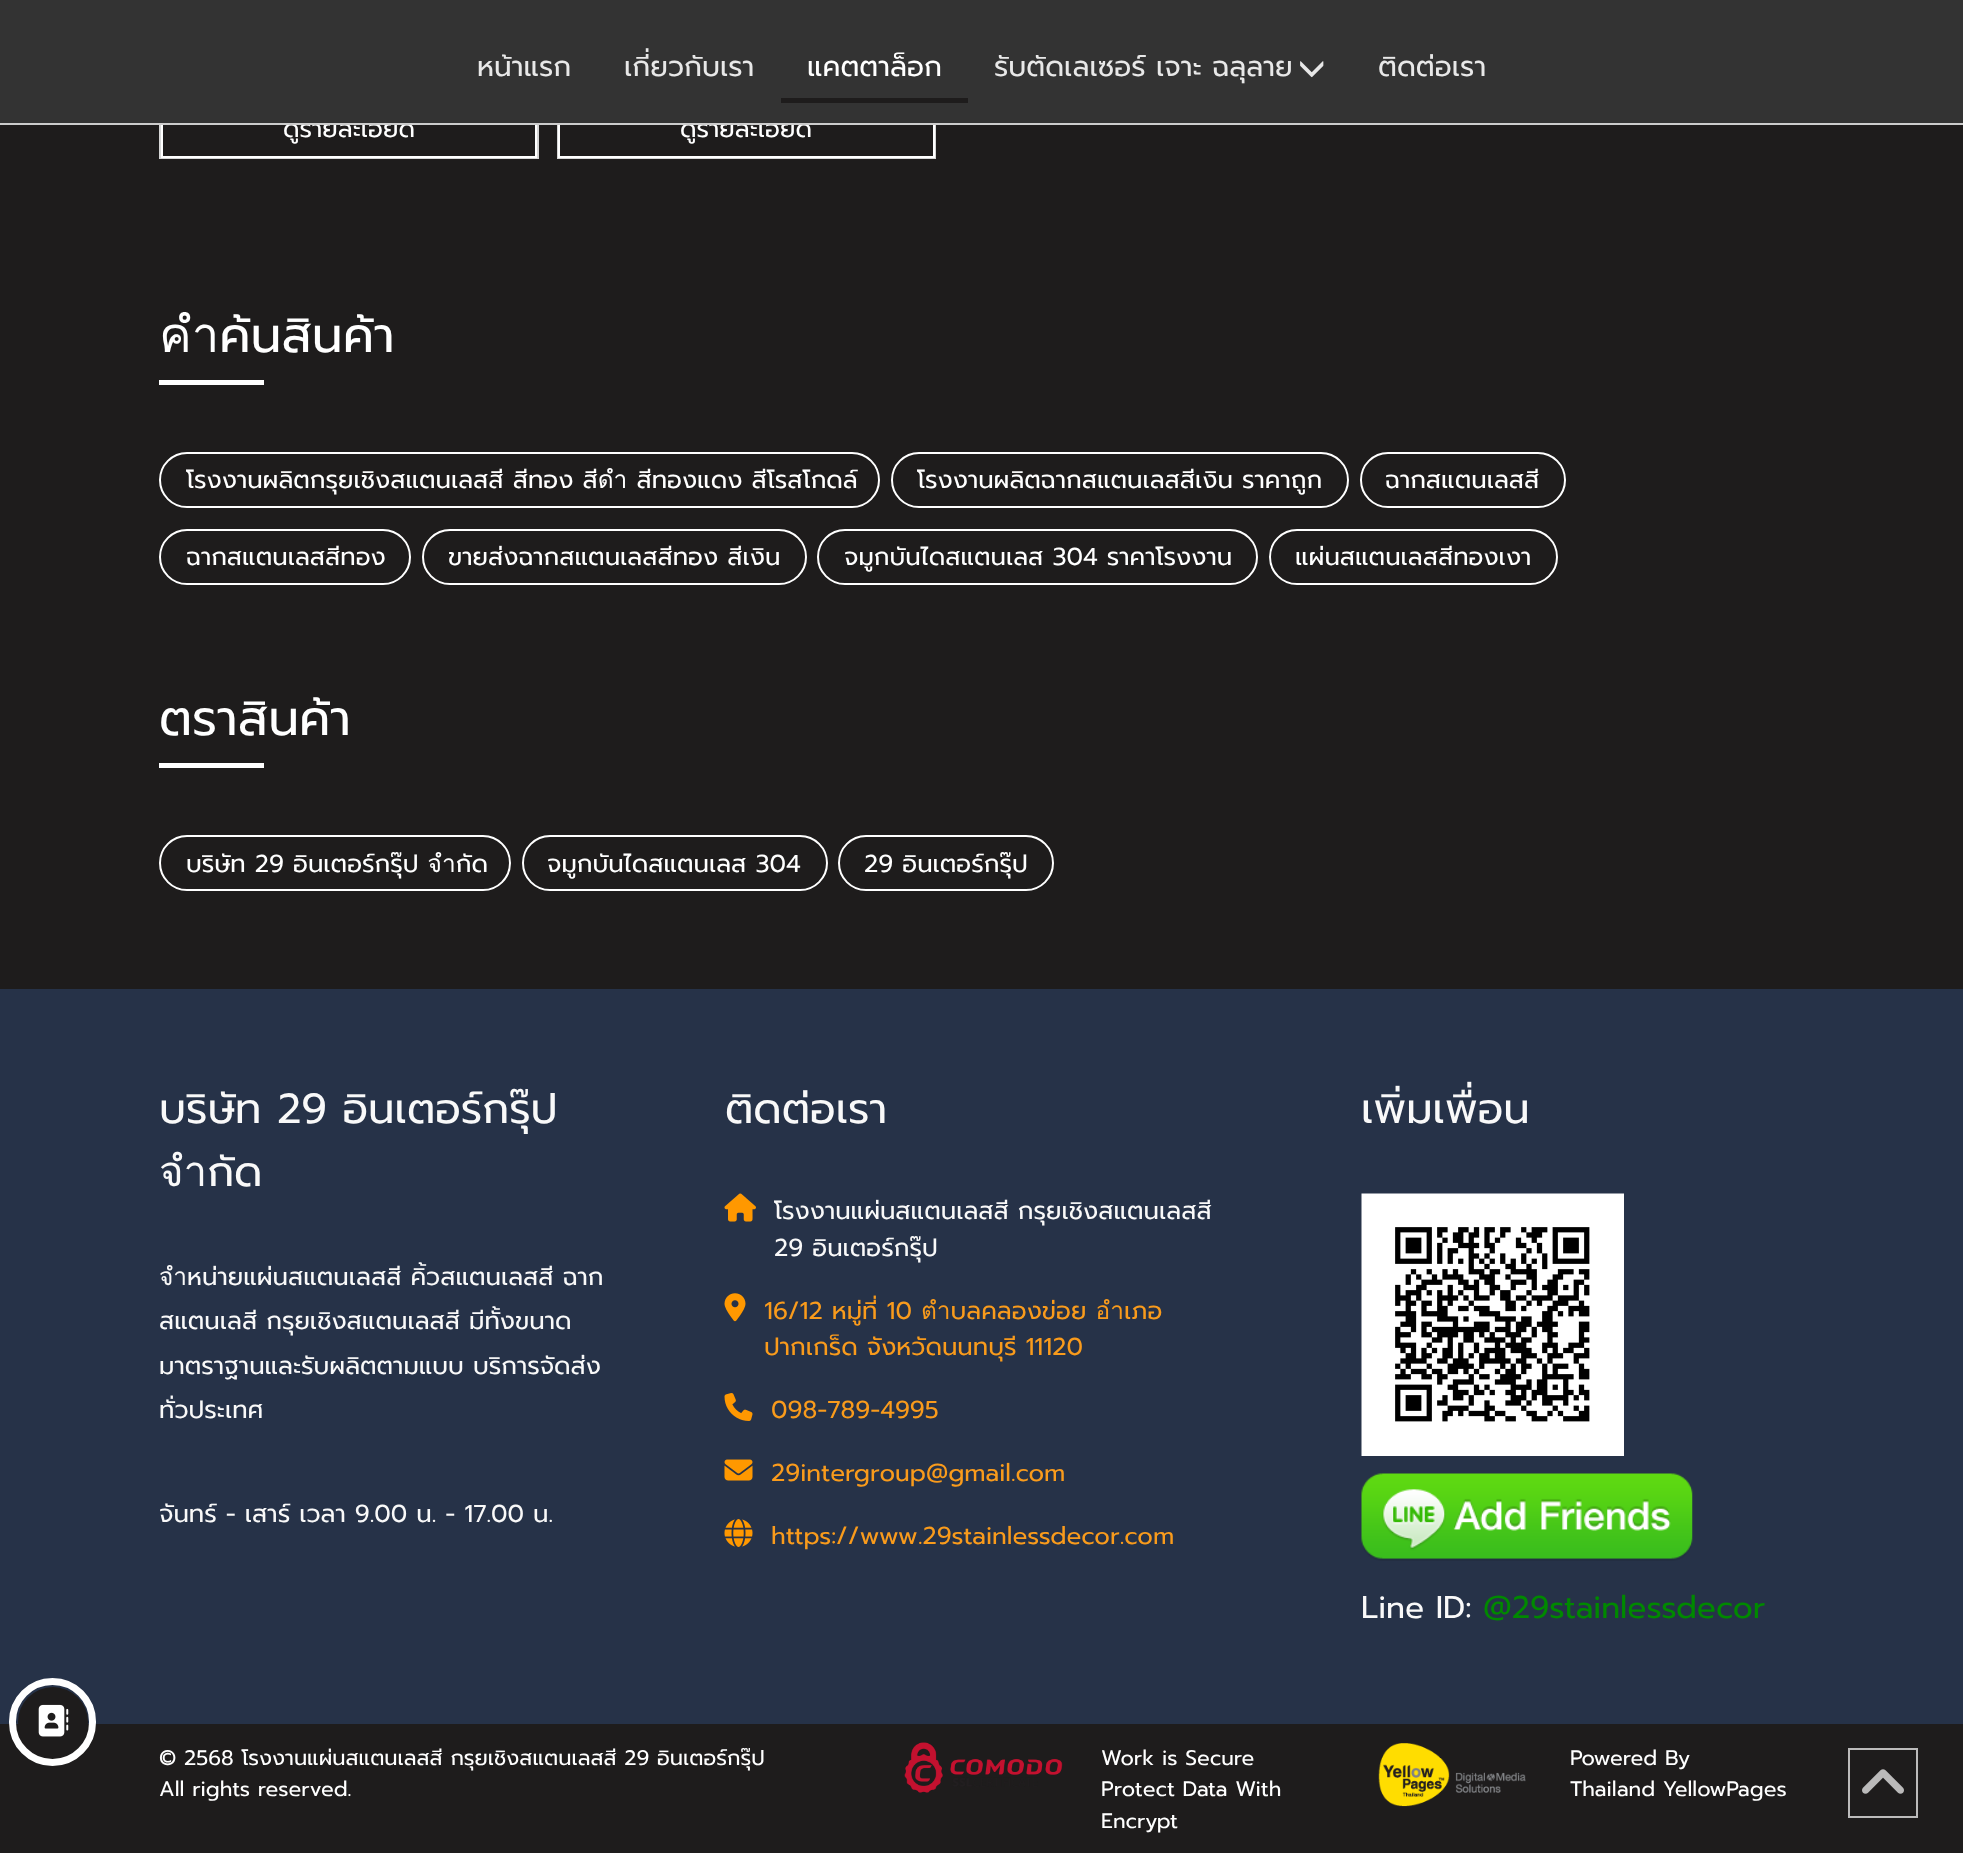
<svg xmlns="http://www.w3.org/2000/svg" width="1963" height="1853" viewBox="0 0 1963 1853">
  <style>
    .t1 { font: 24.5px Prompt; fill: #fff; }
    .t2 { font: 28px Prompt; fill: #e8e8e8; }
    .t3 { font: 28px Prompt; fill: #fff; }
    .t4 { font: 49px Prompt; fill: #fff; }
    .t5 { font: 42px Prompt; fill: #f9f9f9; }
    .t6 { font: 24.5px Prompt; fill: #f9f9f9; }
    .t7 { font: 24.5px Prompt; fill: #f99b1c; }
    .t8 { font: 31.5px Prompt; fill: #f9f9f9; }
    .t9 { font: 31.5px Prompt; fill: #008900; }
    .t10 { font: 21px Prompt; fill: #fff; }
  </style>
  <rect width="100%" height="100%" fill="#1e1c1c"/>
  <rect x="0" y="989" width="1963" height="735" fill="#263248"/>
  <circle cx="53" cy="1722" r="35" fill="#1e1c1c"/>
  <image x="38" y="1704" width="31" height="33" href="images/1.png"/>
  <rect x="12.5" y="1681.5" width="80" height="81" rx="40" fill="none" stroke="#fff" stroke-width="7"/>
  <rect x="160" y="-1" width="378" height="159" fill="none" stroke="#d6d6d6" stroke-width="2"/>
  <rect x="162" y="99" width="374" height="58" fill="none" stroke="#fff" stroke-width="2"/>
  <text x="283" y="137" class="t1">ดูรายละเอียด</text>
  <rect x="558" y="-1" width="377" height="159" fill="none" stroke="#d6d6d6" stroke-width="2"/>
  <rect x="559" y="99" width="375" height="58" fill="none" stroke="#fff" stroke-width="2"/>
  <text x="680" y="137" class="t1">ดูรายละเอียด</text>
  <rect x="0" y="0" width="1963" height="123" fill="#333"/>
  <rect x="0" y="123" width="1963" height="2" fill="#ccc"/>
  <text x="477" y="76" class="t2">หน้าแรก</text>
  <text x="624" y="76" class="t2">เกี่ยวกับเรา</text>
  <rect x="781" y="98" width="187" height="5" fill="#1e1c1c"/>
  <text x="807" y="76" class="t3">แคตตาล็อก</text>
  <text x="994" y="76" class="t2">รับตัดเลเซอร์ เจาะ ฉลุลาย</text>
  <image x="1300" y="61" width="24" height="17" href="images/2.png"/>
  <text x="1378" y="76" class="t2">ติดต่อเรา</text>
  <text x="159" y="352" class="t4">คำค้นสินค้า</text>
  <rect x="159" y="380" width="105" height="5" fill="#fff"/>
  <rect x="160" y="453" width="719" height="54" rx="27" fill="none" stroke="#fff" stroke-width="2"/>
  <text x="186" y="488" class="t1">โรงงานผลิตกรุยเชิงสแตนเลสสี สีทอง สีดำ สีทองแดง สีโรสโกดล์</text>
  <rect x="892" y="453" width="456" height="54" rx="27" fill="none" stroke="#fff" stroke-width="2"/>
  <text x="917" y="488" class="t1">โรงงานผลิตฉากสแตนเลสสีเงิน ราคาถูก</text>
  <rect x="1361" y="453" width="204" height="54" rx="27" fill="none" stroke="#fff" stroke-width="2"/>
  <text x="1385" y="488" class="t1">ฉากสแตนเลสสี</text>
  <rect x="160" y="530" width="250" height="54" rx="27" fill="none" stroke="#fff" stroke-width="2"/>
  <text x="186" y="565" class="t1">ฉากสแตนเลสสีทอง</text>
  <rect x="423" y="530" width="383" height="54" rx="27" fill="none" stroke="#fff" stroke-width="2"/>
  <text x="448" y="565" class="t1">ขายส่งฉากสแตนเลสสีทอง สีเงิน</text>
  <rect x="818" y="530" width="439" height="54" rx="27" fill="none" stroke="#fff" stroke-width="2"/>
  <text x="844" y="565" class="t1">จมูกบันไดสแตนเลส 304 ราคาโรงงาน</text>
  <rect x="1270" y="530" width="287" height="54" rx="27" fill="none" stroke="#fff" stroke-width="2"/>
  <text x="1295" y="565" class="t1">แผ่นสแตนเลสสีทองเงา</text>
  <text x="159" y="735" class="t4">ตราสินค้า</text>
  <rect x="159" y="763" width="105" height="5" fill="#fff"/>
  <rect x="160" y="836" width="350" height="54" rx="27" fill="none" stroke="#fff" stroke-width="2"/>
  <text x="186" y="872" class="t1">บริษัท 29 อินเตอร์กรุ๊ป จำกัด</text>
  <rect x="523" y="836" width="304" height="54" rx="27" fill="none" stroke="#fff" stroke-width="2"/>
  <text x="547" y="872" class="t1">จมูกบันไดสแตนเลส 304</text>
  <rect x="839" y="836" width="214" height="54" rx="27" fill="none" stroke="#fff" stroke-width="2"/>
  <text x="864" y="872" class="t1">29 อินเตอร์กรุ๊ป</text>
  <text x="159" y="1123" class="t5">บริษัท 29 อินเตอร์กรุ๊ป</text>
  <text x="159" y="1186" class="t5">จำกัด</text>
  <text x="159" y="1285" class="t6">จำหน่ายแผ่นสแตนเลสสี คิ้วสแตนเลสสี ฉาก</text>
  <text x="159" y="1329" class="t6">สแตนเลสี กรุยเชิงสแตนเลสสี มีทั้งขนาด</text>
  <text x="159" y="1374" class="t6">มาตราฐานและรับผลิตตามแบบ บริการจัดส่ง</text>
  <text x="159" y="1418" class="t6">ทั่วประเทศ</text>
  <text x="159" y="1522" class="t6">จันทร์ - เสาร์ เวลา 9.00 น. - 17.00 น.</text>
  <text x="725" y="1123" class="t5">ติดต่อเรา</text>
  <image x="724" y="1193" width="32" height="29" href="images/3.png"/>
  <text x="774" y="1219" class="t6">โรงงานแผ่นสแตนเลสสี กรุยเชิงสแตนเลสสี</text>
  <text x="774" y="1256" class="t6">29 อินเตอร์กรุ๊ป</text>
  <image x="724" y="1293" width="22" height="29" href="images/4.png"/>
  <text x="764" y="1319" class="t7">16/12 หมู่ที่ 10 ตำบลคลองข่อย อำเภอ</text>
  <text x="764" y="1355" class="t7">ปากเกร็ด จังหวัดนนทบุรี 11120</text>
  <image x="724" y="1393" width="29" height="28" href="images/5.png"/>
  <text x="771" y="1418" class="t7">098-789-4995</text>
  <image x="724" y="1459" width="29" height="22" href="images/6.png"/>
  <text x="771" y="1481" class="t7">29intergroup@gmail.com</text>
  <image x="724" y="1519" width="29" height="28" href="images/7.png"/>
  <text x="771" y="1544" class="t7">https://www.29stainlessdecor.com</text>
  <text x="1361" y="1123" class="t5">เพิ่มเพื่อน</text>
  <image x="1361" y="1193" width="263" height="263" href="images/8.png"/>
  <image x="1361" y="1473" width="332" height="88" href="images/9.png"/>
  <text x="1361" y="1618" class="t8">Line ID:</text>
  <text x="1483" y="1618" class="t9">@29stainlessdecor</text>
  <text x="159" y="1765" class="t10">© 2568 โรงงานแผ่นสแตนเลสสี กรุยเชิงสแตนเลสสี 29 อินเตอร์กรุ๊ป</text>
  <text x="159" y="1796" class="t10">All rights reserved.</text>
  <image x="904" y="1742" width="159" height="51" href="images/10.png"/>
  <text x="1101" y="1765" class="t10">Work is Secure</text>
  <text x="1101" y="1796" class="t10">Protect Data With</text>
  <text x="1101" y="1828" class="t10">Encrypt</text>
  <image x="1378" y="1743" width="148" height="64" href="images/11.png"/>
  <text x="1570" y="1765" class="t10">Powered By</text>
  <text x="1570" y="1796" class="t10">Thailand YellowPages</text>
  <rect x="1849" y="1749" width="68" height="68" fill="none" stroke="#bcbbbb" stroke-width="2"/>
  <image x="1862" y="1769" width="42" height="25" href="images/12.png"/>
</svg>
